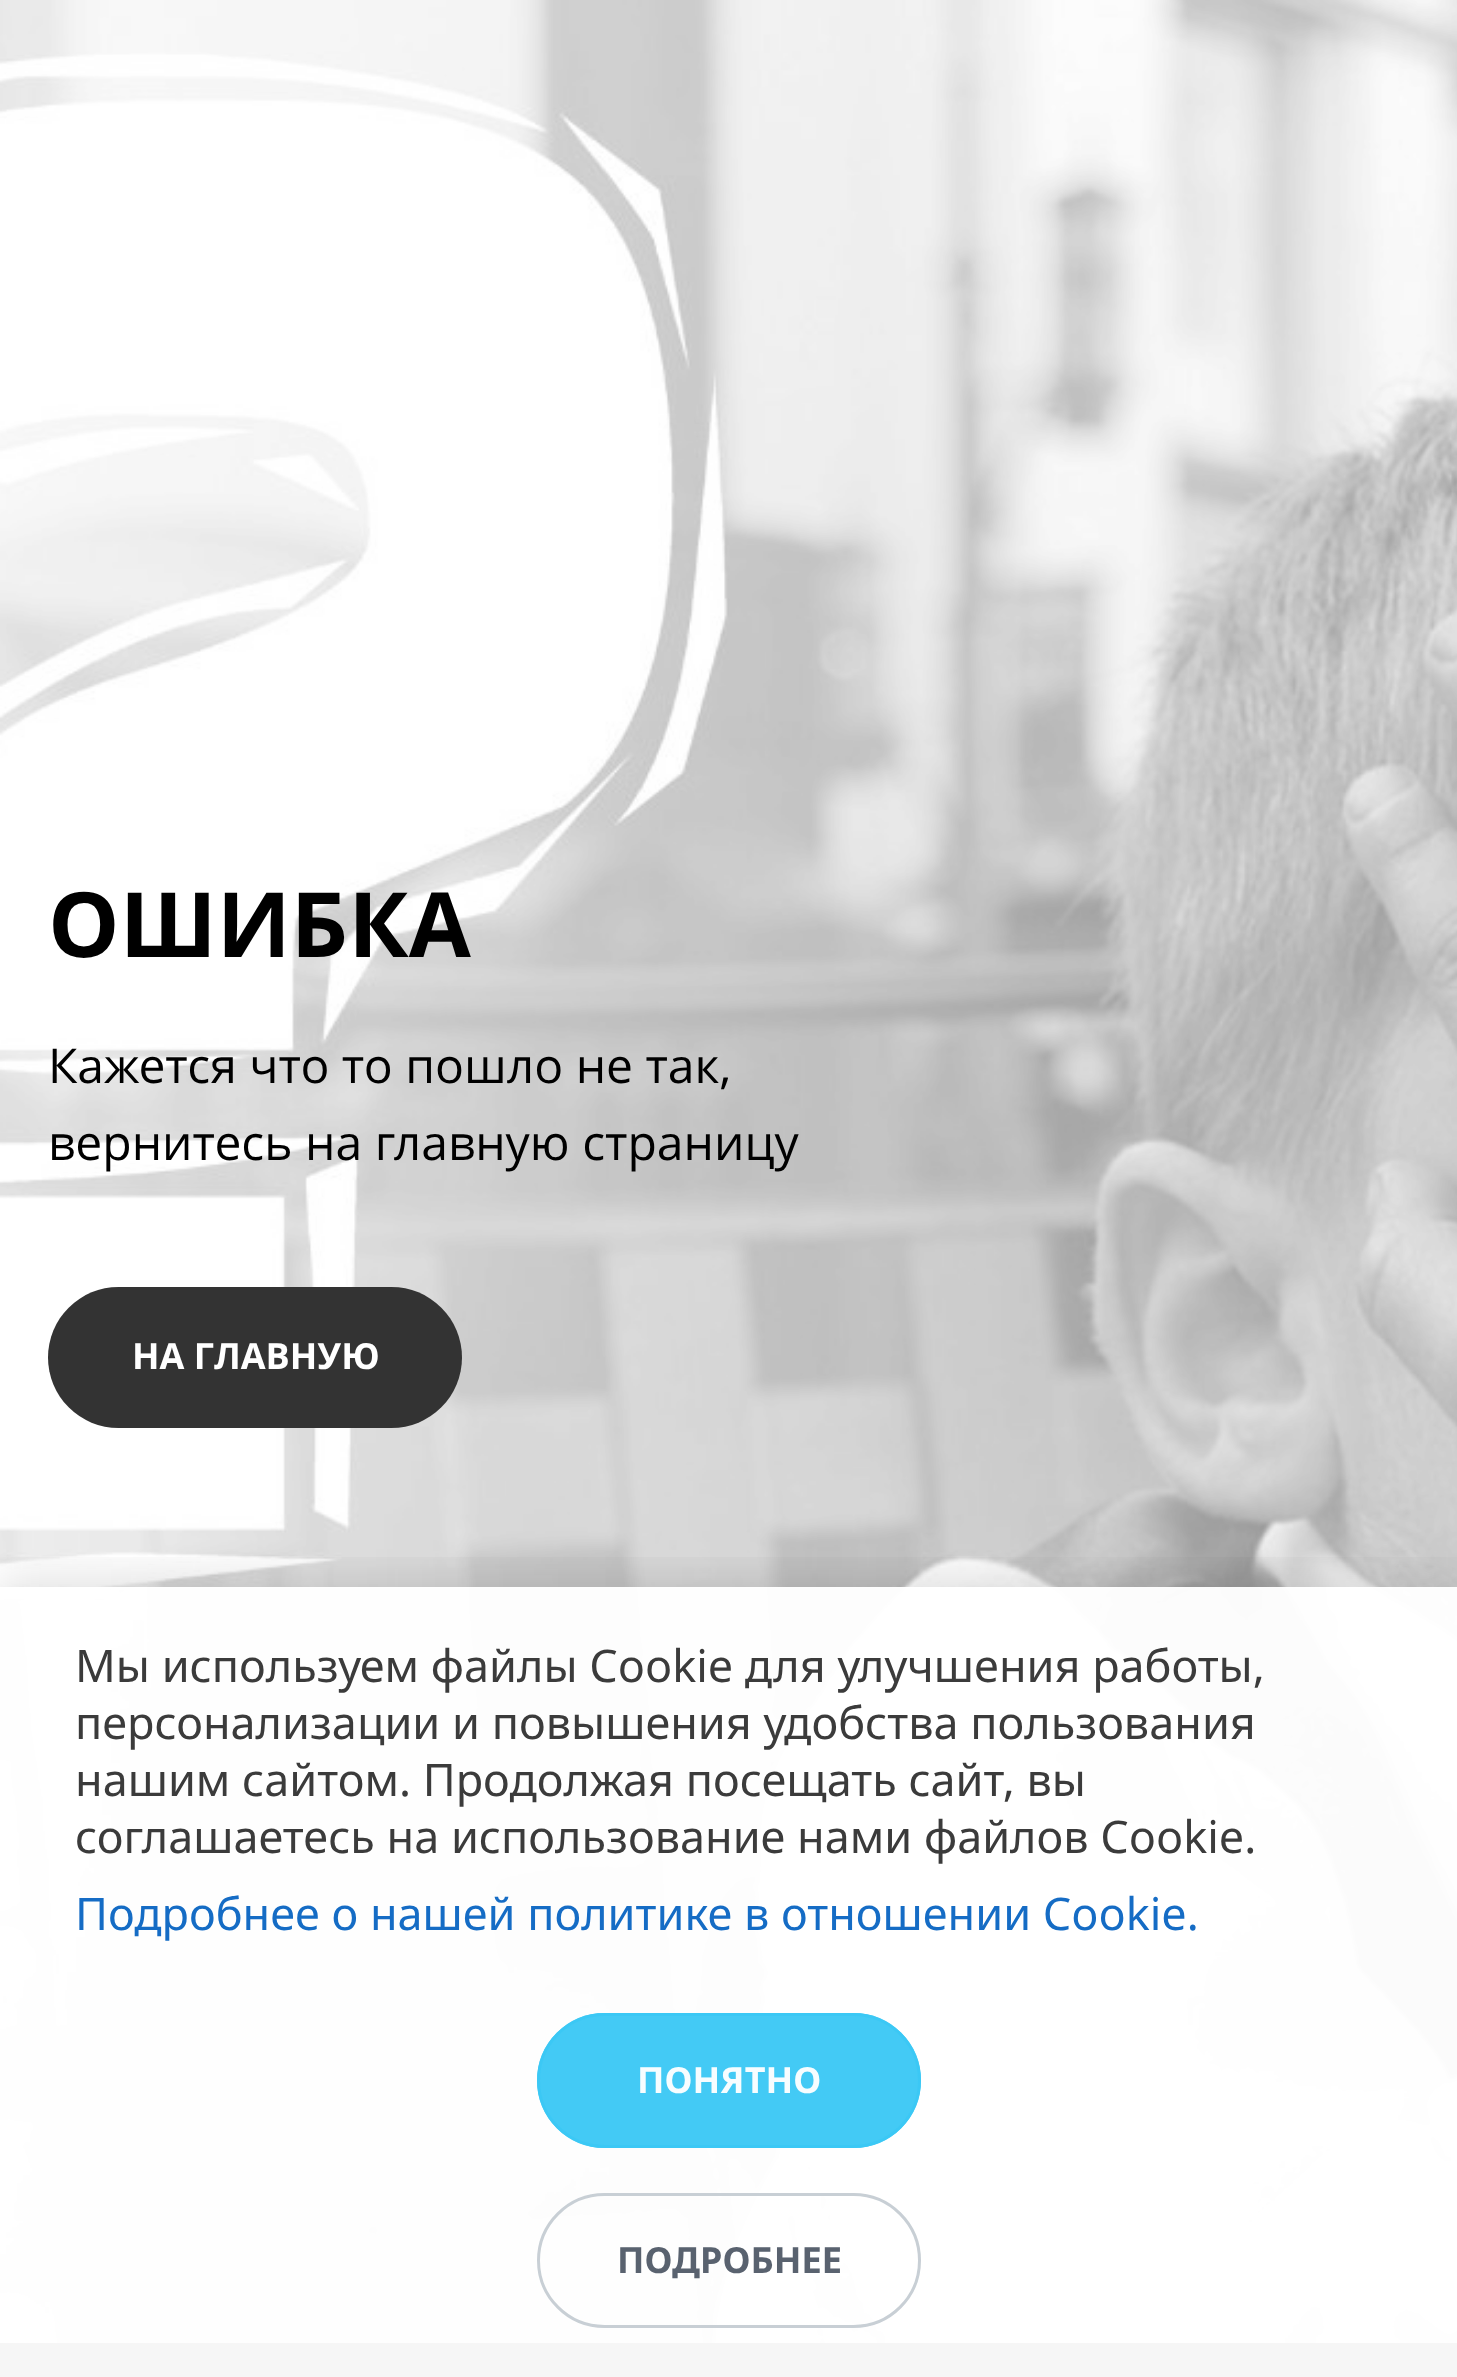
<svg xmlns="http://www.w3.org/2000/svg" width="1457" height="2377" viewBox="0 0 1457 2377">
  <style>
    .t1 { font: bold 90px Open Sans; fill: #000; }
    .t2 { font: 48px Open Sans; fill: #000; }
    .t3 { font: bold 36px Open Sans; fill: #fff; }
    .t4 { font: 45px Noto Sans; fill: #3b3b3b; }
    .t5 { font: 45px Noto Sans; fill: #156cc5; }
    .t6 { font: bold 36px Noto Sans; fill: #f7fdff; }
    .t7 { font: bold 36px Noto Sans; fill: #59626f; }
  </style>
  <defs>
    <clipPath id="clip1"><rect x="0" y="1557" width="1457" height="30"/></clipPath>
  </defs>
  <rect width="100%" height="100%" fill="#242424"/>
  <image x="0" y="0" width="1457" height="2343" href="images/1.png"/>
  <text x="48" y="957" class="t1">ОШИБКА</text>
  <text x="48" y="1083" class="t2">Кажется что то пошло не так,</text>
  <text x="48" y="1160" class="t2">вернитесь на главную страницу</text>
  <rect x="48" y="1287" width="414" height="141" rx="70.5" fill="#333"/>
  <text x="132" y="1369" class="t3">НА ГЛАВНУЮ</text>
  <g clip-path="url(#clip1)">
    <rect x="0" y="1575" width="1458" height="792" fill="#0000001a" filter="blur(21px)"/>
  </g>
  <rect x="0" y="1587" width="1457" height="790" fill="#fffffff5"/>
  <text x="75" y="1682" class="t4">Мы используем файлы Cookie для улучшения работы,</text>
  <text x="75" y="1739" class="t4">персонализации и повышения удобства пользования</text>
  <text x="75" y="1796" class="t4">нашим сайтом. Продолжая посещать сайт, вы</text>
  <text x="75" y="1853" class="t4">соглашаетесь на использование нами файлов Cookie.</text>
  <text x="75" y="1930" class="t5">Подробнее о нашей политике в отношении Cookie.</text>
  <rect x="537" y="2013" width="384" height="135" rx="67.5" fill="#43caf5"/>
  <rect x="538.5" y="2014.5" width="381" height="132" rx="66" fill="none" stroke="#3bc8f5f5" stroke-width="3"/>
  <text x="637" y="2093" class="t6">ПОНЯТНО</text>
  <rect x="538.5" y="2194.5" width="381" height="132" rx="66" fill="none" stroke="#c8cfd5" stroke-width="3"/>
  <text x="617" y="2273" class="t7">ПОДРОБНЕЕ</text>
</svg>
